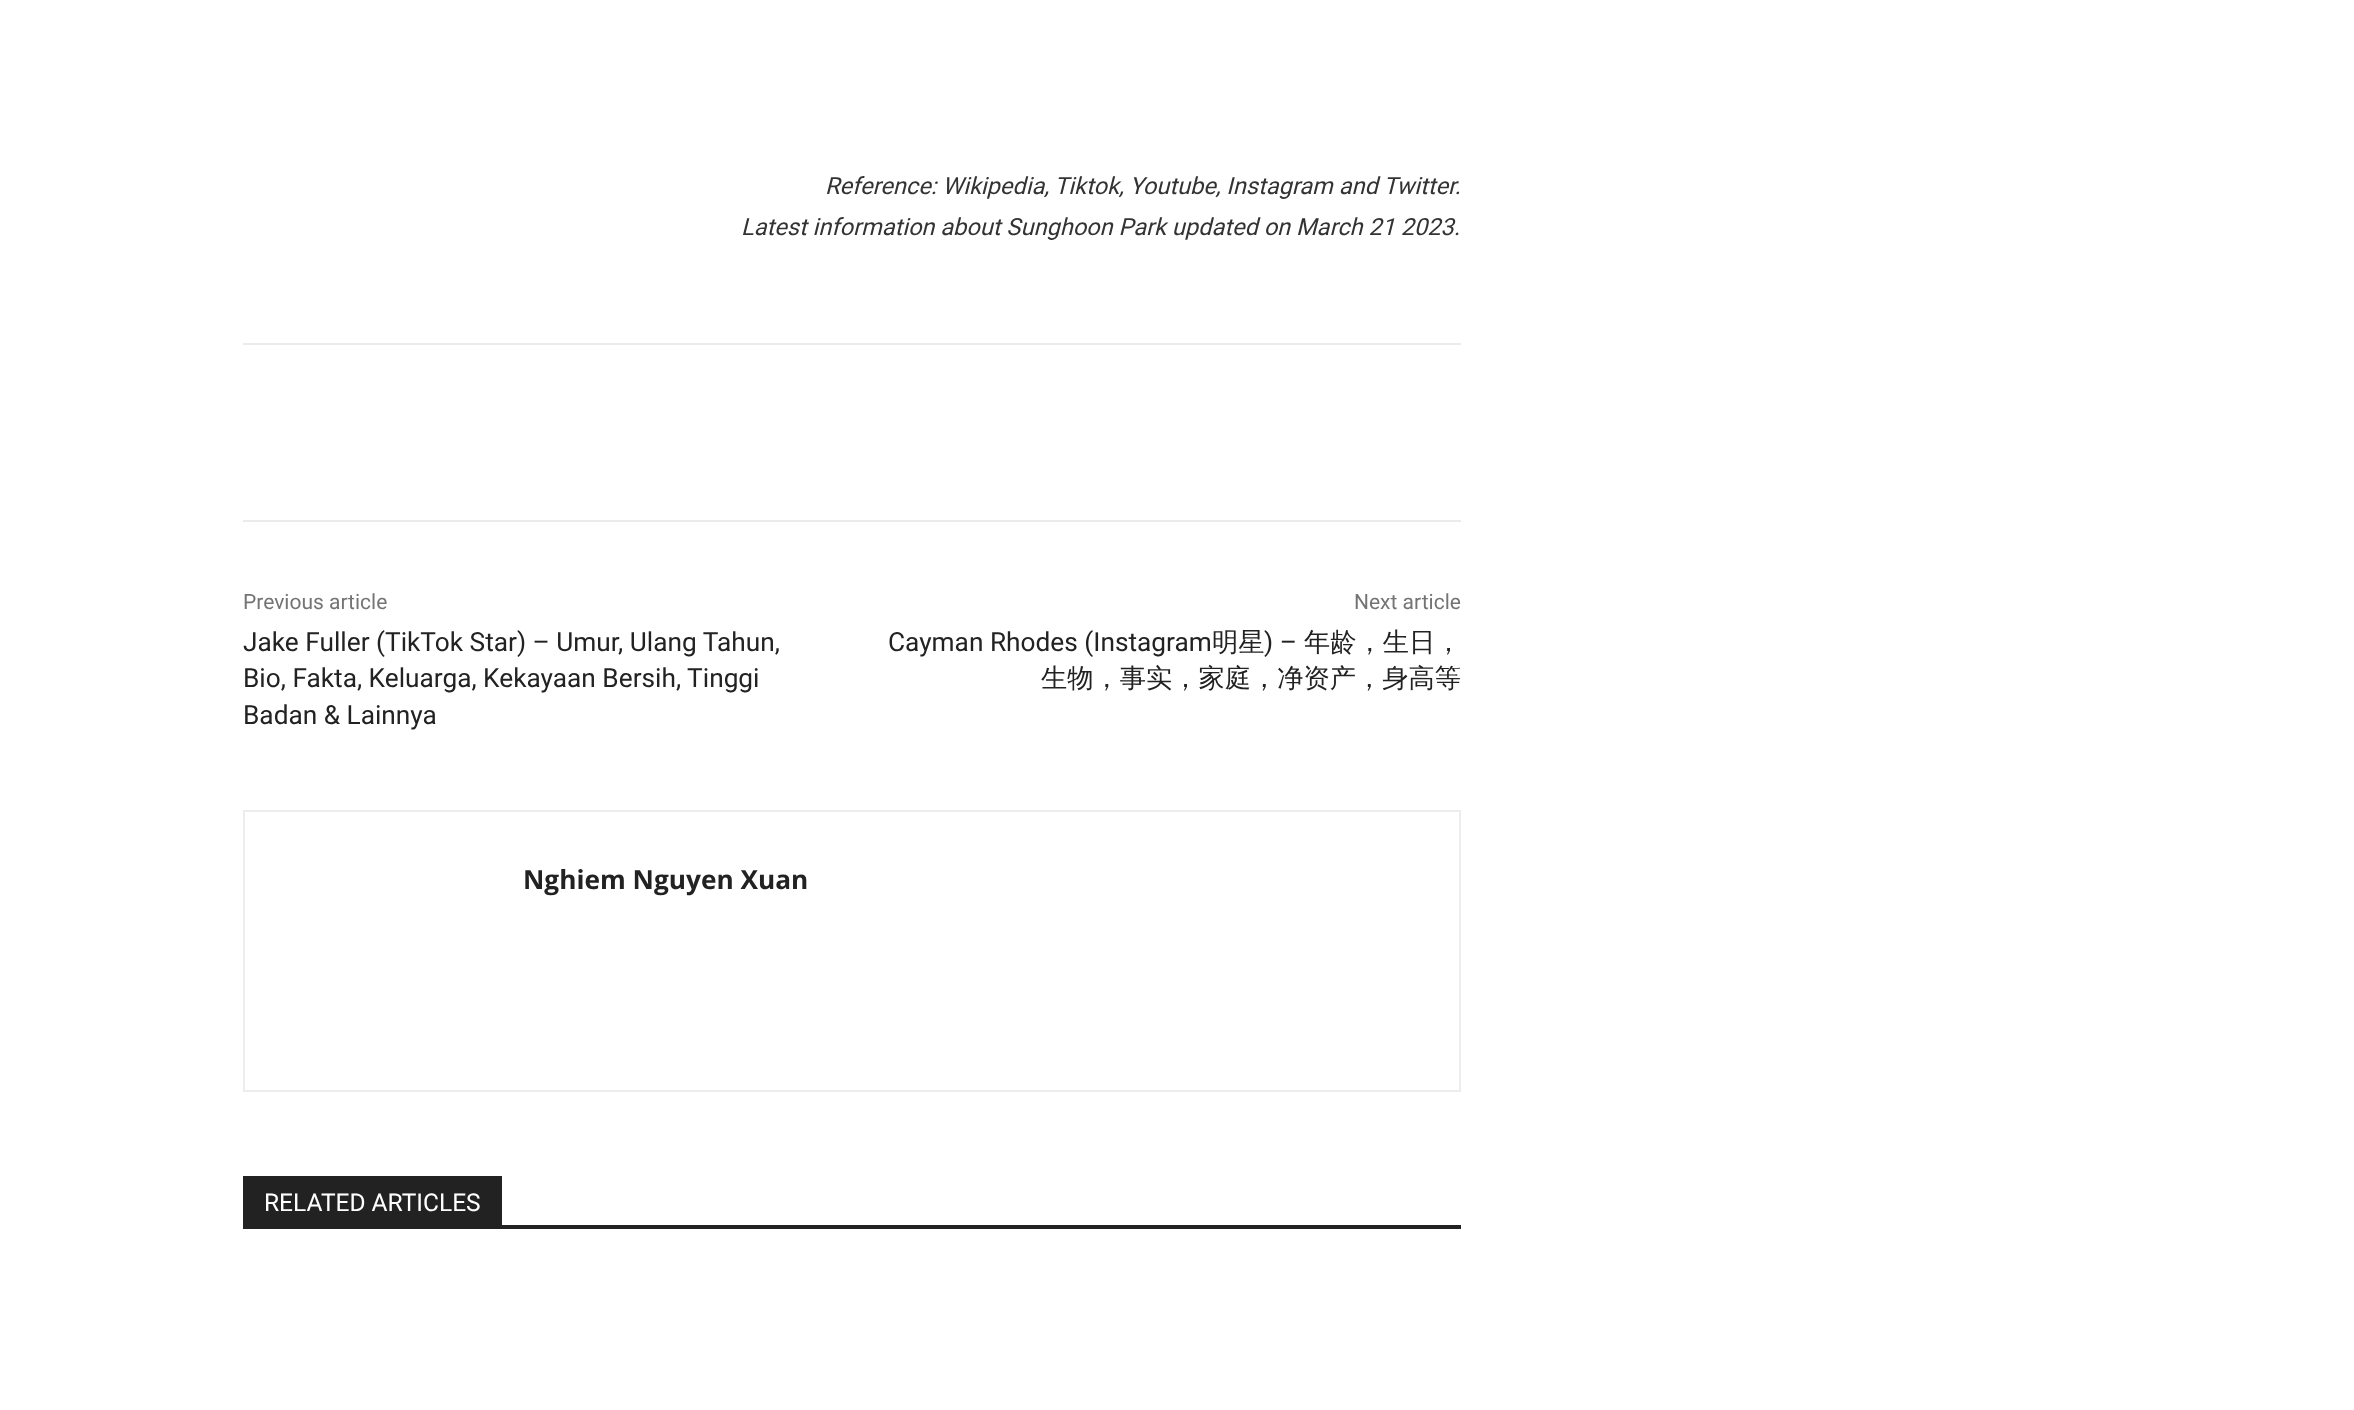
<svg xmlns="http://www.w3.org/2000/svg" width="2354" height="1410" viewBox="0 0 2354 1410">
  <style>
    .t1 { font: italic 23.6px Roboto; fill: #333; }
    .t2 { font: 21px Roboto; fill: #747474; }
    .t3 { font: 26.25px Roboto; fill: #222; }
    .t4 { font: 500 26.25px WenQuanYi Zen Hei; fill: #222; }
    .t5 { font: bold 26.25px Open Sans; fill: #222; }
    .t6 { font: 24.5px Roboto; fill: #fff; }
  </style>
  <rect width="100%" height="100%" fill="#fff"/>
  <text x="825" y="194" class="t1">Reference: Wikipedia, Tiktok, Youtube, Instagram and Twitter.</text>
  <text x="741" y="235" class="t1">Latest information about Sunghoon Park updated on March 21 2023.</text>
  <rect x="243" y="343" width="1218" height="2" fill="#ebebeb"/>
  <rect x="243" y="520" width="1218" height="2" fill="#ebebeb"/>
  <text x="243" y="609" class="t2">Previous article</text>
  <text x="243" y="651" class="t3">Jake Fuller (TikTok Star) – Umur, Ulang Tahun,</text>
  <text x="243" y="687" class="t3">Bio, Fakta, Keluarga, Kekayaan Bersih, Tinggi</text>
  <text x="243" y="724" class="t3">Badan &amp; Lainnya</text>
  <text x="1354" y="609" class="t2">Next article</text>
  <text x="888" y="651" class="t3">Cayman Rhodes (Instagram</text>
  <text x="1212" y="651" class="t4">明星</text>
  <text x="1264" y="651" class="t3">) –</text>
  <text x="1304" y="651" class="t4">年龄，生日，</text>
  <text x="1041" y="687" class="t4">生物，事实，家庭，净资产，身高等</text>
  <rect x="244" y="811" width="1216" height="280" fill="none" stroke="#ededed" stroke-width="2"/>
  <text x="523" y="889" class="t5">Nghiem Nguyen Xuan</text>
  <rect x="243" y="1225" width="1218" height="4" fill="#222"/>
  <rect x="243" y="1176" width="259" height="49" fill="#222"/>
  <text x="264" y="1211" class="t6">RELATED ARTICLES</text>
</svg>
